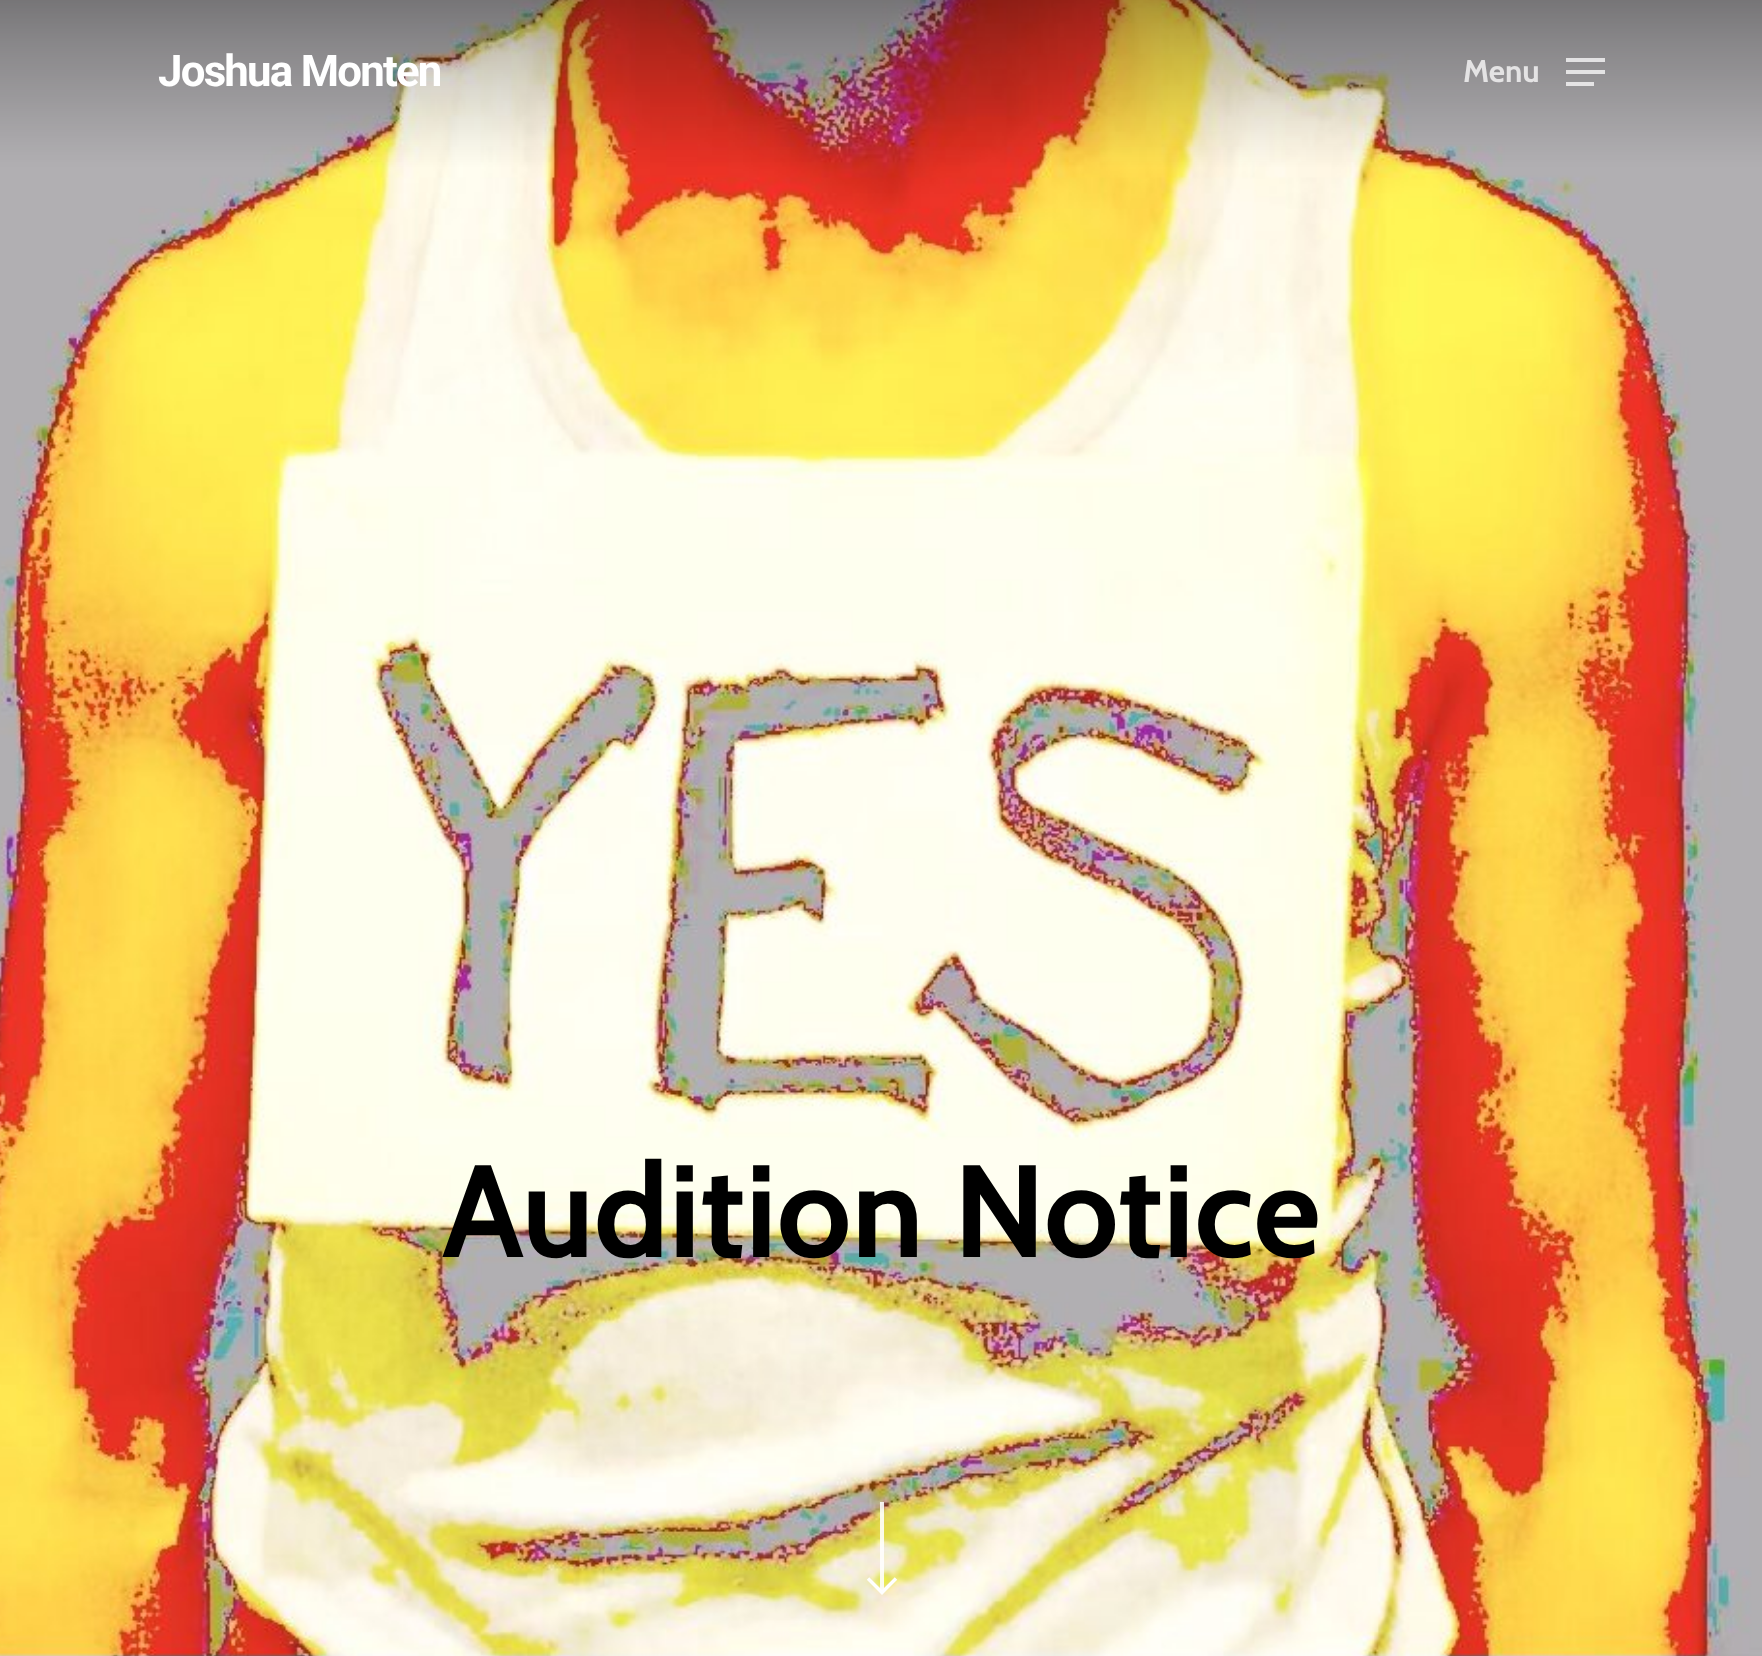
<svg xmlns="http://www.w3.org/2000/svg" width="1762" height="1656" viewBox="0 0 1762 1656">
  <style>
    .t1 { font: bold 43.75px Roboto; letter-spacing: -1.75px; fill: #fff; }
    .t2 { font: bold 31.5px Cabin; fill: #e4e3e4; }
    .t3 { font: bold 131px Cabin; fill: #000; }
  </style>
  <rect width="100%" height="100%" fill="#fff"/>
  <image x="0" y="0" width="1762" height="1656" href="images/1.png"/>
  <text x="158" y="86" class="t1">Joshua Monten</text>
  <text x="1463" y="82" class="t2">Menu</text>
  <rect x="1566" y="58" width="39" height="4" fill="#e3e2e3"/>
  <rect x="1566" y="82" width="28" height="4" fill="#e5e4e5"/>
  <rect x="1566" y="70" width="39" height="4" fill="#e4e3e4"/>
  <text x="442" y="1257" class="t3">Audition Notice</text>
  <rect x="880" y="1502" width="4" height="89" fill="#ffffffe0"/>
  <path d="M868 1578.5L882 1592.5L896 1578.5" fill="none" stroke="#fff" stroke-width="3.5"/>
</svg>
